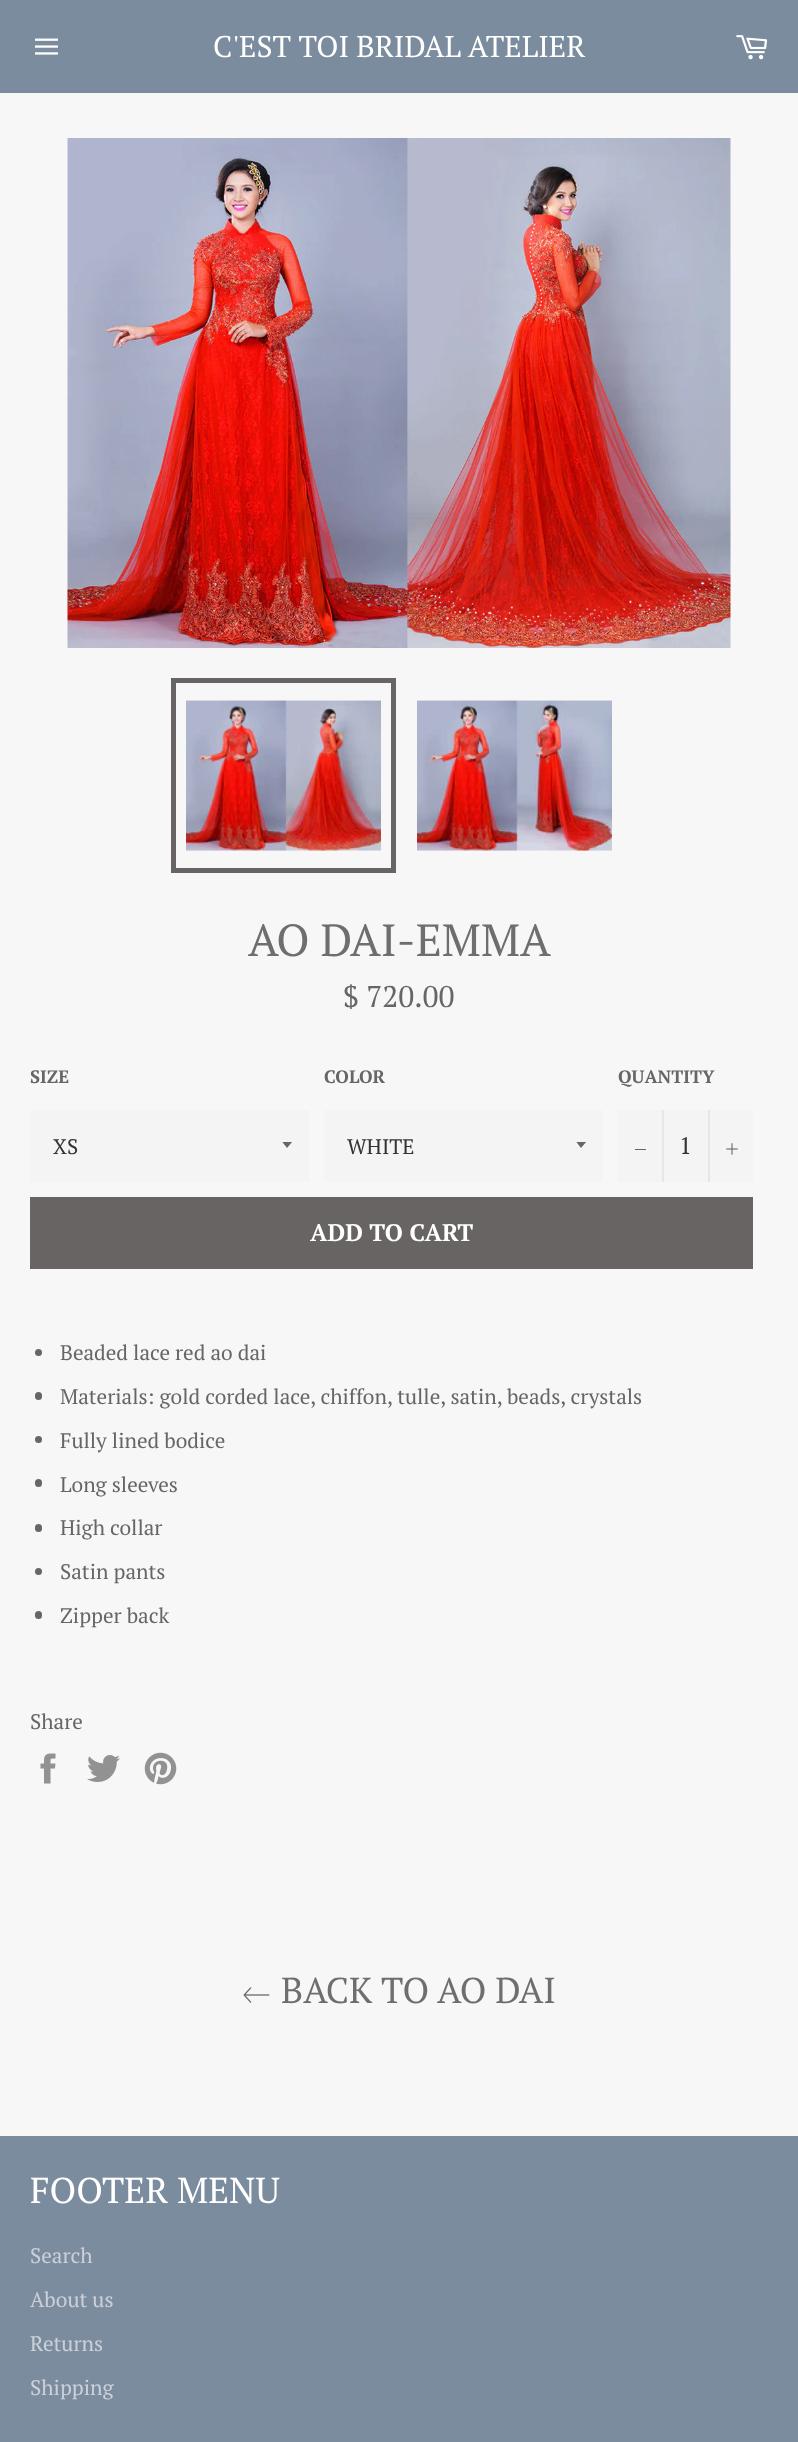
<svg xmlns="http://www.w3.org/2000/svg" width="798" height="2442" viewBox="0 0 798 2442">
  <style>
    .t1 { font: 30px PT Serif; fill: #fff; }
    .t2 { font: 45px PT Serif; fill: #6e6e6e; }
    .t3 { font: 30px PT Serif; fill: #666; }
    .t4 { font: bold 18px PT Serif; fill: #666; }
    .t5 { font: 21px PT Serif; fill: #333; }
    .t6 { font: 24px PT Serif; fill: #333; }
    .t7 { font: bold 24px PT Serif; fill: #fff; }
    .t8 { font: 21px PT Serif; fill: #666; }
    .t9 { font: 36px PT Serif; fill: #6e6e6e; }
    .t10 { font: 36px PT Serif; fill: #fff; }
    .t11 { font: 21px PT Serif; fill: #cbd1d9; }
  </style>
  <defs>
    <clipPath id="clip1"><rect x="282" y="1142" width="12" height="7"/></clipPath>
    <clipPath id="clip2"><rect x="576" y="1142" width="12" height="7"/></clipPath>
  </defs>
  <rect width="100%" height="100%" fill="#f7f7f7"/>
  <rect x="0" y="0" width="798" height="93" fill="#7c8c9f"/>
  <image x="35" y="38" width="23" height="17" href="images/1.png"/>
  <text x="213" y="57" class="t1">C'EST TOI BRIDAL ATELIER</text>
  <image x="736" y="35" width="31" height="25" href="images/2.png"/>
  <image x="67" y="138" width="664" height="510" href="images/3.png"/>
  <image x="186" y="700" width="195" height="151" href="images/4.png"/>
  <rect x="173.5" y="680.5" width="220" height="190" fill="none" stroke="#686463" stroke-width="5"/>
  <image x="417" y="700" width="195" height="151" href="images/5.png"/>
  <text x="248" y="956" class="t2">AO DAI-EMMA</text>
  <text x="343" y="1007" class="t3">$ 720.00</text>
  <text x="30" y="1083" class="t4">SIZE</text>
  <rect x="30" y="1110" width="279" height="72" fill="#f4f4f4"/>
  <g clip-path="url(#clip1)">
    <path d="M282 1141.5L287 1148L292.5 1141.5Z" fill="#666"/>
  </g>
  <text x="53" y="1154" class="t5">XS</text>
  <text x="324" y="1083" class="t4">COLOR</text>
  <rect x="324" y="1110" width="279" height="72" fill="#f4f4f4"/>
  <g clip-path="url(#clip2)">
    <path d="M576 1141.5L581 1148L586.5 1141.5Z" fill="#666"/>
  </g>
  <text x="347" y="1154" class="t5">WHITE</text>
  <text x="618" y="1083" class="t4">QUANTITY</text>
  <rect x="618" y="1110" width="135" height="72" fill="#f4f4f4"/>
  <rect x="662" y="1110" width="2" height="72" fill="#e7e7e7"/>
  <rect x="635" y="1149" width="11" height="1" fill="#666"/>
  <text x="679" y="1154" class="t6">1</text>
  <rect x="708" y="1110" width="2" height="72" fill="#e7e7e7"/>
  <image x="726" y="1143" width="12" height="12" href="images/6.png"/>
  <rect x="30" y="1197" width="723" height="72" fill="#686463"/>
  <text x="310" y="1241" class="t7">ADD TO CART</text>
  <circle cx="38.5" cy="1352.5" r="3.5" fill="#666"/>
  <text x="60" y="1360" class="t8">Beaded lace red ao dai</text>
  <rect x="35" y="1392" width="7" height="8" rx="3.5" fill="#666"/>
  <text x="60" y="1404" class="t8">Materials: gold corded lace, chiffon, tulle, satin, beads, crystals</text>
  <circle cx="38.5" cy="1439.5" r="3.5" fill="#666"/>
  <text x="60" y="1448" class="t8">Fully lined bodice</text>
  <rect x="35" y="1479" width="7" height="8" rx="3.5" fill="#666"/>
  <text x="60" y="1492" class="t8">Long sleeves</text>
  <rect x="35" y="1524" width="7" height="8" rx="3.5" fill="#666"/>
  <text x="60" y="1535" class="t8">High collar</text>
  <circle cx="38.5" cy="1571.5" r="3.5" fill="#666"/>
  <text x="60" y="1579" class="t8">Satin pants</text>
  <rect x="35" y="1611" width="7" height="8" rx="3.5" fill="#666"/>
  <text x="60" y="1623" class="t8">Zipper back</text>
  <text x="30" y="1729" class="t8">Share</text>
  <image x="40" y="1753" width="16" height="31" href="images/7.png"/>
  <image x="87" y="1755" width="33" height="27" href="images/8.png"/>
  <image x="144" y="1752" width="33" height="33" href="images/9.png"/>
  <image x="243" y="1987" width="27" height="16" href="images/10.png"/>
  <text x="281" y="2003" class="t9">BACK TO AO DAI</text>
  <rect x="0" y="2136" width="798" height="306" fill="#7c8c9f"/>
  <text x="30" y="2203" class="t10">FOOTER MENU</text>
  <text x="30" y="2263" class="t11">Search</text>
  <text x="30" y="2307" class="t11">About us</text>
  <text x="30" y="2351" class="t11">Returns</text>
  <text x="30" y="2395" class="t11">Shipping</text>
</svg>
